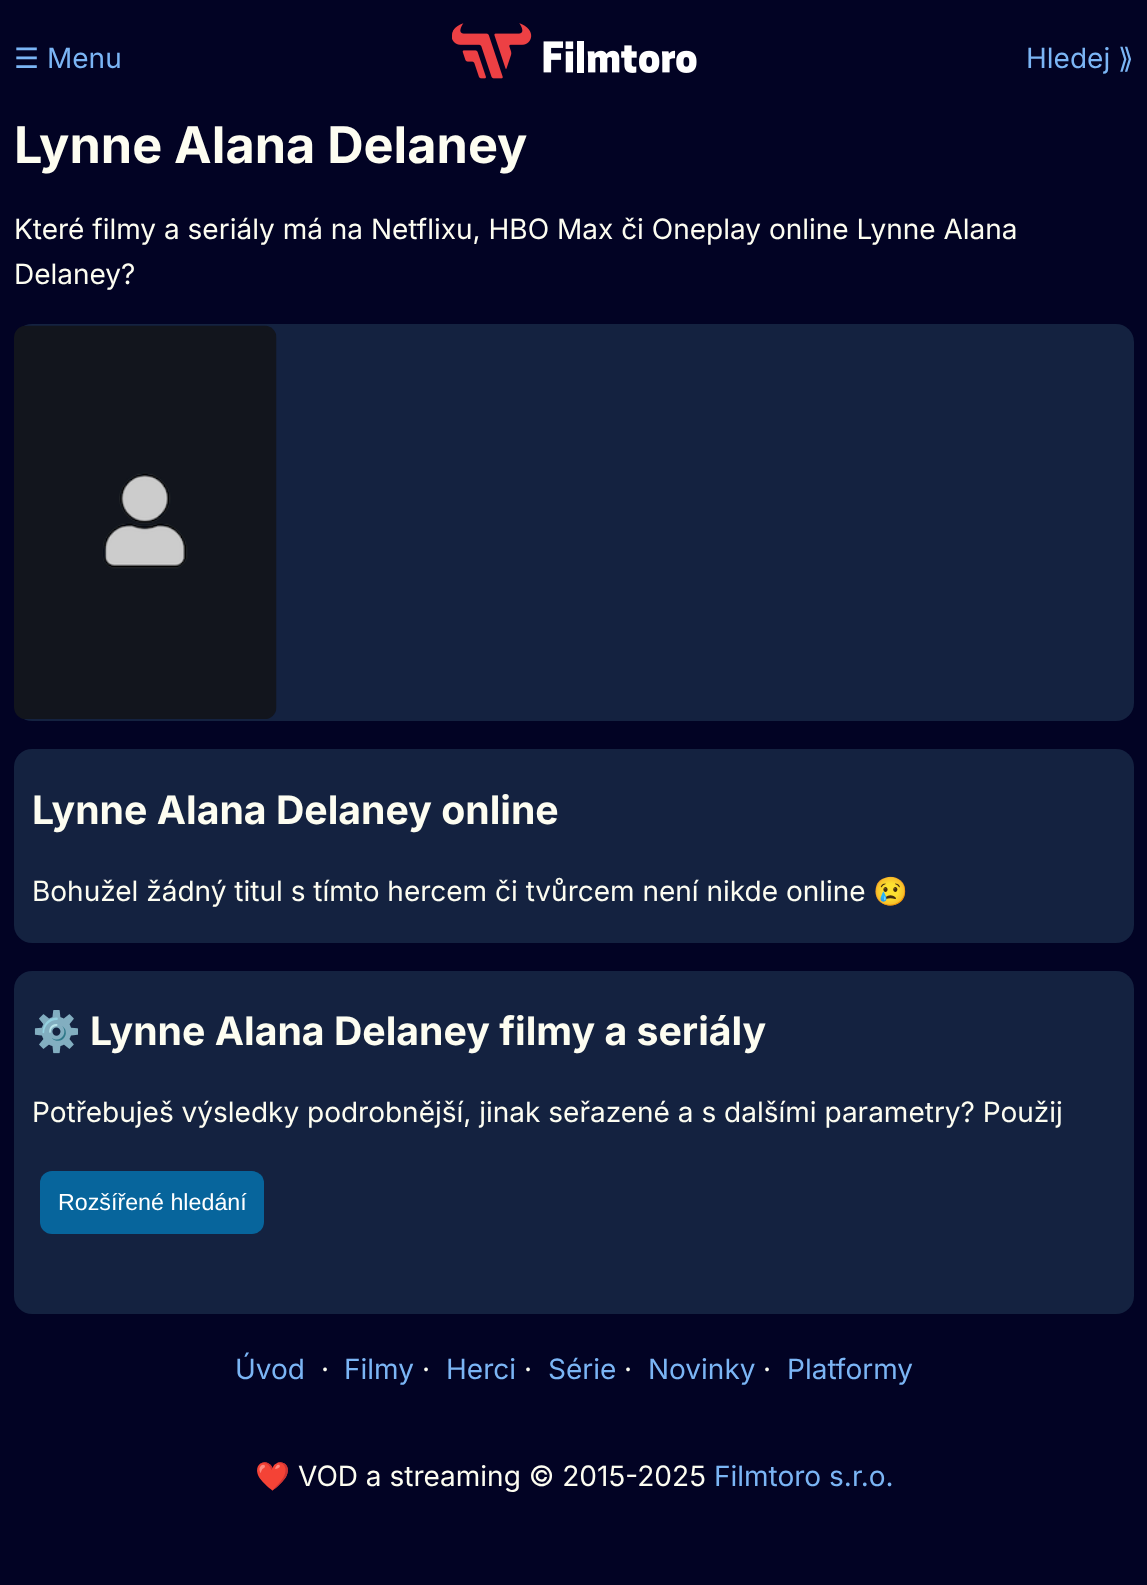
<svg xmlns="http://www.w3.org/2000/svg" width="1147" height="1585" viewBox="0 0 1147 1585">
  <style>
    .t1 { font: 28px DejaVu Sans; fill: #7bb5f5; }
    .t2 { font: 28px Inter; fill: #7bb5f5; }
    .t3 { font: bold 50.4px Inter; fill: #fdfdf1; }
    .t4 { font: 28px Inter; fill: #fdfdf1; }
    .t5 { font: bold 39.25px Inter; fill: #fdfdf1; }
    .t6 { font: 28px Noto Color Emoji; fill: #fdfdf1; }
    .t7 { font: bold 39.25px Noto Color Emoji; fill: #fdfdf1; }
    .t8 { font: 23.25px Liberation Sans; fill: #fff; }
  </style>
  <rect width="100%" height="100%" fill="#020324"/>
  <text x="14" y="68" class="t1">☰</text>
  <text x="47" y="68" class="t2">Menu</text>
  <image x="452" y="23" width="245" height="56" href="images/1.png"/>
  <text x="1026" y="68" class="t2">Hledej</text>
  <text x="1118" y="68" class="t1">⟫</text>
  <text x="14" y="163" class="t3">Lynne Alana Delaney</text>
  <text x="14" y="239" class="t4">Které filmy a seriály má na Netflixu, HBO Max či Oneplay online Lynne Alana</text>
  <text x="14" y="284" class="t4">Delaney?</text>
  <rect x="14" y="324" width="1120" height="397" rx="18" fill="#142240"/>
  <image x="14" y="325" width="263" height="394" href="images/2.png"/>
  <rect x="14" y="749" width="1120" height="194" rx="18" fill="#142240"/>
  <text x="32" y="824" class="t5">Lynne Alana Delaney online</text>
  <text x="32" y="901" class="t4">Bohužel žádný titul s tímto hercem či tvůrcem není nikde online</text>
  <text x="873" y="901" class="t6">😢</text>
  <rect x="14" y="971" width="1120" height="343" rx="18" fill="#142240"/>
  <text x="32" y="1045" class="t7">⚙️</text>
  <text x="90" y="1045" class="t5">Lynne Alana Delaney filmy a seriály</text>
  <text x="32" y="1122" class="t4">Potřebuješ výsledky podrobnější, jinak seřazené a s dalšími parametry? Použij</text>
  <rect x="40" y="1171" width="224" height="63" rx="12" fill="#07659c"/>
  <text x="58" y="1210" class="t8">Rozšířené hledání</text>
  <text x="235" y="1379" class="t2">Úvod</text>
  <text x="321" y="1379" class="t4">·</text>
  <text x="344" y="1379" class="t2">Filmy</text>
  <text x="422" y="1379" class="t4">·</text>
  <text x="446" y="1379" class="t2">Herci</text>
  <text x="524" y="1379" class="t4">·</text>
  <text x="548" y="1379" class="t2">Série</text>
  <text x="624" y="1379" class="t4">·</text>
  <text x="648" y="1379" class="t2">Novinky</text>
  <text x="763" y="1379" class="t4">·</text>
  <text x="787" y="1379" class="t2">Platformy</text>
  <text x="255" y="1486" class="t6">❤️</text>
  <text x="298" y="1486" class="t4">VOD a streaming © 2015-2025</text>
  <text x="714" y="1486" class="t2">Filmtoro s.r.o.</text>
</svg>
